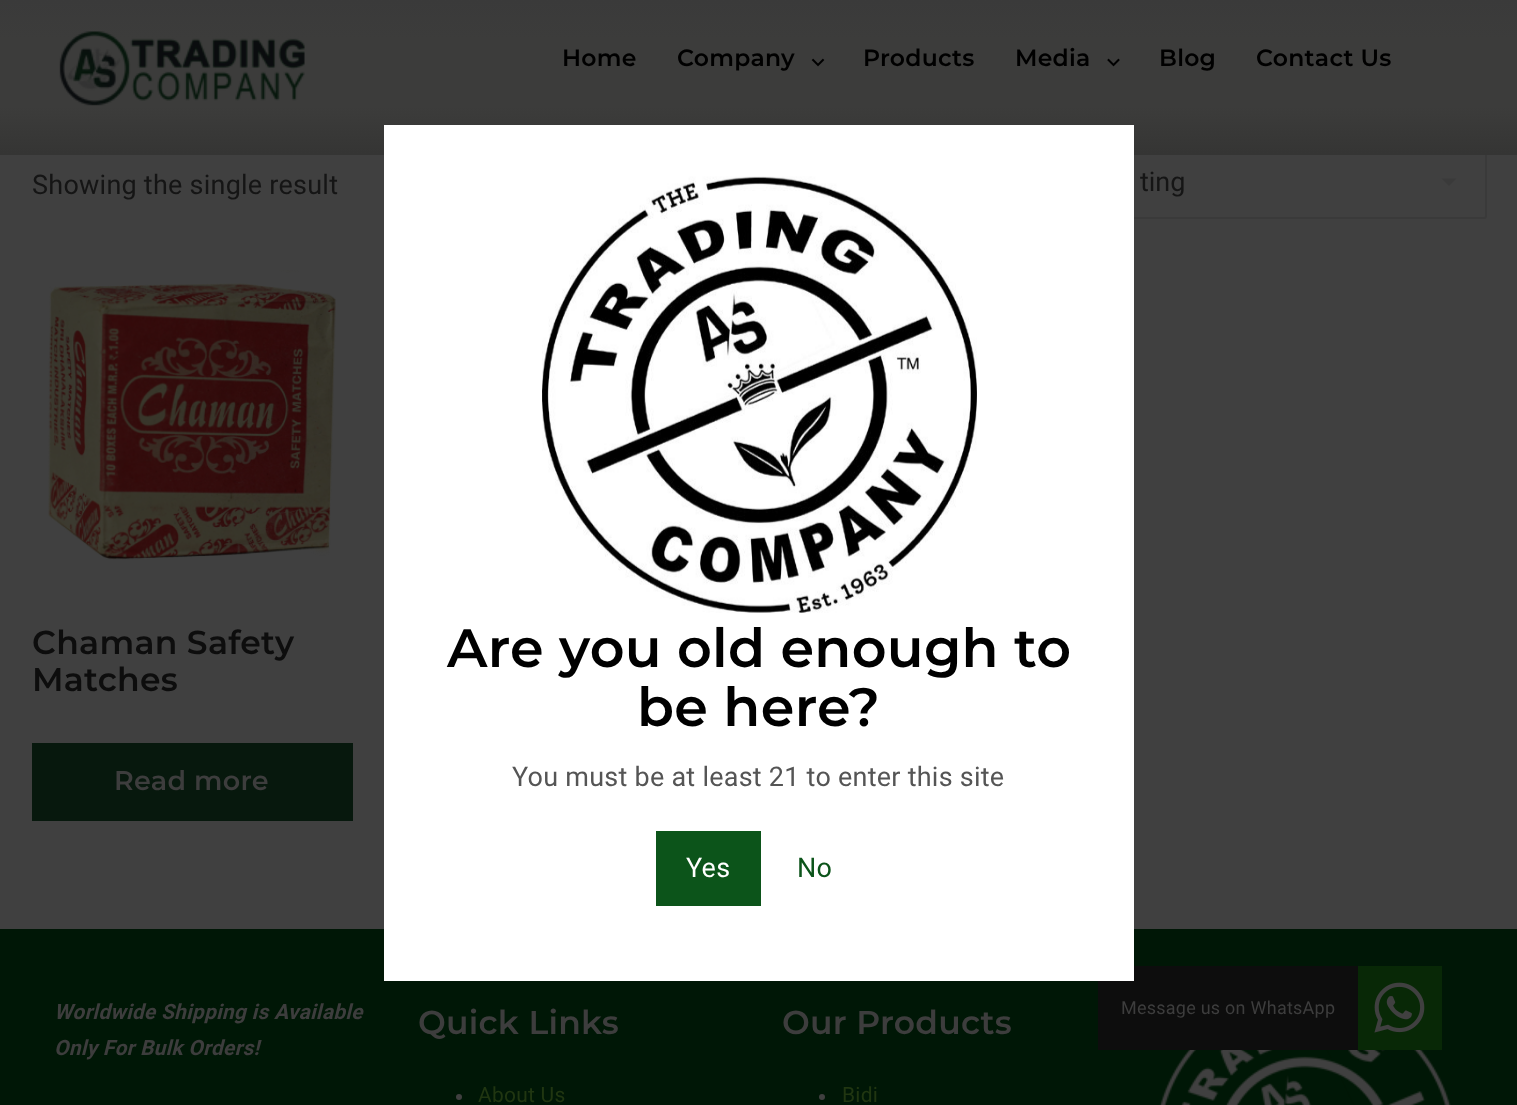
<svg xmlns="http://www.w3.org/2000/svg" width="1517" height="1105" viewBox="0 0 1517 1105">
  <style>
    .t1 { font: 600 23.5px Montserrat; letter-spacing: 0.25px; fill: #000; }
    .t2 { font: 27px Roboto; letter-spacing: 0.25px; fill: #151515; }
    .t3 { font: 27px Roboto; fill: #151515; }
    .t4 { font: 600 33px Montserrat; letter-spacing: 0.25px; fill: #0d0d0d; }
    .t5 { font: 600 27px Montserrat; letter-spacing: 0.25px; fill: #3d3d3d; }
    .t6 { font: 600 54px Montserrat; letter-spacing: 0.25px; fill: #000; }
    .t7 { font: 27px Roboto; letter-spacing: 0.25px; fill: #555; }
    .t8 { font: 27px Roboto; letter-spacing: 0.25px; fill: #fff; }
    .t9 { font: 27px Roboto; letter-spacing: 0.25px; fill: #0c541a; }
    .t10 { font: italic bold 21px Roboto; letter-spacing: 0.25px; fill: #3d3d3d; }
    .t11 { font: 600 33px Montserrat; letter-spacing: 0.25px; fill: #3d3d3d; }
    .t12 { font: 21px Roboto; letter-spacing: 0.25px; fill: #203611; }
    .t13 { font: 18px Roboto; letter-spacing: 0.25px; fill: #3d3d3d; }
  </style>
  <defs>
    <linearGradient id="g1" gradientUnits="userSpaceOnUse" x1="759" y1="155" x2="759" y2="0"><stop offset="0" stop-color="#353534"/><stop offset="0.01" stop-color="#353534"/><stop offset="0.31" stop-color="#3c3c3b"/><stop offset="0.75" stop-color="#3c3c3b"/><stop offset="1" stop-color="#3a3a3a"/></linearGradient>
  </defs>
  <rect width="100%" height="100%" fill="#404040"/>
  <rect x="978" y="145" width="508" height="73" rx="2" fill="none" stroke="#3a3a3a" stroke-width="2"/>
  <rect x="0" y="0" width="1517" height="155" fill="url(#g1)"/>
  <image x="59" y="31" width="246" height="75" href="images/1.png"/>
  <text x="562" y="66" class="t1">Home</text>
  <text x="677" y="66" class="t1">Company</text>
  <image x="811" y="58" width="14" height="9" href="images/2.png"/>
  <text x="863" y="66" class="t1">Products</text>
  <text x="1015" y="66" class="t1">Media</text>
  <image x="1107" y="58" width="13" height="9" href="images/3.png"/>
  <text x="1159" y="66" class="t1">Blog</text>
  <text x="1256" y="66" class="t1">Contact Us</text>
  <text x="32" y="194" class="t2">Showing the single result</text>
  <text x="1140" y="191" class="t3">ting</text>
  <path d="M1441.5 178.5H1456.5L1449 186Z" fill="#3a3a3a"/>
  <image x="48" y="270" width="288" height="290" href="images/4.png"/>
  <text x="32" y="654" class="t4">Chaman Safety</text>
  <text x="32" y="691" class="t4">Matches</text>
  <rect x="32" y="743" width="321" height="78" fill="#07180d"/>
  <text x="114" y="790" class="t5">Read more</text>
  <rect x="0" y="929" width="1517" height="176" fill="#001706"/>
  <rect x="1098" y="966" width="260" height="84" fill="#0d0d0d"/>
  <rect x="384" y="125" width="750" height="856" fill="#fff"/>
  <image x="542" y="176" width="435" height="437" href="images/5.png"/>
  <text x="447" y="667" class="t6">Are you old enough to</text>
  <text x="637" y="726" class="t6">be here?</text>
  <text x="512" y="786" class="t7">You must be at least 21 to enter this site</text>
  <rect x="656" y="831" width="105" height="75" fill="#0c541a"/>
  <text x="686" y="877" class="t8">Yes</text>
  <text x="797" y="877" class="t9">No</text>
  <text x="54" y="1019" class="t10">Worldwide Shipping is Available</text>
  <text x="54" y="1055" class="t10">Only For Bulk Orders!</text>
  <text x="418" y="1034" class="t11">Quick Links</text>
  <circle cx="459" cy="1097" r="3" fill="#404040"/>
  <text x="478" y="1102" class="t12">About Us</text>
  <text x="782" y="1034" class="t11">Our Products</text>
  <circle cx="822" cy="1097" r="3" fill="#404040"/>
  <text x="842" y="1102" class="t12">Bidi</text>
  <image x="1159" y="1050" width="292" height="55" href="images/6.png"/>
  <rect x="1358" y="966" width="84" height="84" fill="#082806"/>
  <text x="1121" y="1014" class="t13">Message us on WhatsApp</text>
  <image x="1374" y="982" width="51" height="51" href="images/7.png"/>
</svg>
